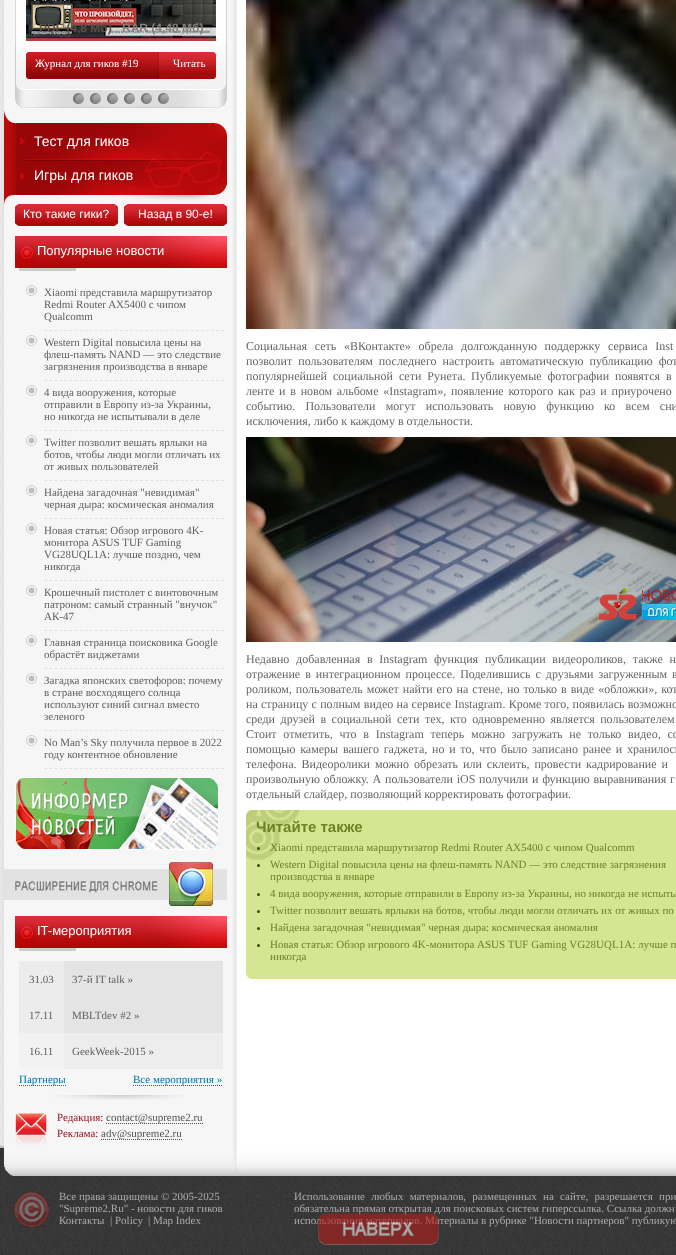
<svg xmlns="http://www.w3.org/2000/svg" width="676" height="1255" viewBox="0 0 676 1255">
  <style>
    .t1 { font: bold 12px Liberation Sans; fill: #5d5049; }
    .t2 { font: bold 12px Liberation Sans; fill: #86807e; }
    .t3 { font: 11px Liberation Serif; fill: #fff; }
    .t4 { font: 14px Liberation Sans; fill: #fff; }
    .t5 { font: 12px Liberation Sans; fill: #fff; }
    .t6 { font: 13px Liberation Sans; fill: #fff; }
    .t7 { font: 11px Liberation Serif; fill: #606060; }
    .t8 { font: 11px Liberation Serif; fill: #0072a4; }
    .t9 { font: 11px Liberation Serif; fill: #960b0e; }
    .t10 { font: 11px Liberation Serif; fill: #525252; }
    .t11 { font: 12px Liberation Serif; fill: #666; }
    .t12 { font: bold 15px Liberation Sans; fill: #708028; }
    .t13 { font: 11px Liberation Serif; fill: #708028; }
    .t14 { font: 11px Liberation Serif; fill: #ababab; }
  </style>
  <rect width="100%" height="100%" fill="#fff"/>
  <image x="0" y="0" width="676" height="1146" href="images/1.png"/>
  <image x="15" y="0" width="212" height="108" href="images/2.png"/>
  <image x="26" y="0" width="190" height="41" href="images/3.png"/>
  <text x="39" y="32" class="t1">PDF (4,8 Мб)</text>
  <text x="122" y="32" class="t2">RAR (4,48 Мб)</text>
  <text x="35" y="67" class="t3">Журнал для гиков #19</text>
  <text x="173" y="67" class="t3">Читать</text>
  <image x="73" y="93" width="11" height="11" href="images/4.png"/>
  <image x="90" y="93" width="11" height="11" href="images/5.png"/>
  <image x="107" y="93" width="11" height="11" href="images/6.png"/>
  <image x="124" y="93" width="11" height="11" href="images/7.png"/>
  <image x="141" y="93" width="11" height="11" href="images/8.png"/>
  <image x="158" y="93" width="11" height="11" href="images/9.png"/>
  <image x="4" y="111" width="223" height="95" href="images/10.png"/>
  <text x="34" y="146" class="t4">Тест для гиков</text>
  <text x="34" y="180" class="t4">Игры для гиков</text>
  <image x="15" y="204" width="103" height="22" href="images/11.png"/>
  <text x="23" y="218" class="t5">Кто такие гики?</text>
  <image x="124" y="204" width="103" height="22" href="images/11.png"/>
  <text x="138" y="218" class="t5">Назад в 90-е!</text>
  <image x="15" y="236" width="212" height="35" href="images/12.png"/>
  <text x="37" y="255" class="t6">Популярные новости</text>
  <path d="M44 330.5H224" fill="none" stroke="#e2e2e2" stroke-dasharray="3 2.06"/>
  <image x="26" y="285" width="11" height="11" href="images/13.png"/>
  <text x="44" y="296" class="t7">Xiaomi представила маршрутизатор</text>
  <text x="44" y="308" class="t7">Redmi Router AX5400 с чипом</text>
  <text x="44" y="320" class="t7">Qualcomm</text>
  <path d="M44 380.5H224" fill="none" stroke="#e2e2e2" stroke-dasharray="3 2.06"/>
  <image x="26" y="335" width="11" height="11" href="images/13.png"/>
  <text x="44" y="346" class="t7">Western Digital повысила цены на</text>
  <text x="44" y="358" class="t7">флеш-память NAND — это следствие</text>
  <text x="44" y="370" class="t7">загрязнения производства в январе</text>
  <path d="M44 430.5H224" fill="none" stroke="#e2e2e2" stroke-dasharray="3 2.06"/>
  <image x="26" y="385" width="11" height="11" href="images/13.png"/>
  <text x="44" y="396" class="t7">4 вида вооружения, которые</text>
  <text x="44" y="408" class="t7">отправили в Европу из-за Украины,</text>
  <text x="44" y="420" class="t7">но никогда не испытывали в деле</text>
  <path d="M44 480.5H224" fill="none" stroke="#e2e2e2" stroke-dasharray="3 2.06"/>
  <image x="26" y="435" width="11" height="11" href="images/13.png"/>
  <text x="44" y="446" class="t7">Twitter позволит вешать ярлыки на</text>
  <text x="44" y="458" class="t7">ботов, чтобы люди могли отличать их</text>
  <text x="44" y="470" class="t7">от живых пользователей</text>
  <path d="M44 518.5H224" fill="none" stroke="#e2e2e2" stroke-dasharray="3 2.06"/>
  <image x="26" y="485" width="11" height="11" href="images/13.png"/>
  <text x="44" y="496" class="t7">Найдена загадочная "невидимая"</text>
  <text x="44" y="508" class="t7">черная дыра: космическая аномалия</text>
  <path d="M44 580.5H224" fill="none" stroke="#e2e2e2" stroke-dasharray="3 2.06"/>
  <image x="26" y="523" width="11" height="11" href="images/13.png"/>
  <text x="44" y="534" class="t7">Новая статья: Обзор игрового 4K-</text>
  <text x="44" y="546" class="t7">монитора ASUS TUF Gaming</text>
  <text x="44" y="558" class="t7">VG28UQL1A: лучше поздно, чем</text>
  <text x="44" y="570" class="t7">никогда</text>
  <path d="M44 630.5H224" fill="none" stroke="#e2e2e2" stroke-dasharray="3 2.06"/>
  <image x="26" y="585" width="11" height="11" href="images/13.png"/>
  <text x="44" y="596" class="t7">Крошечный пистолет с винтовочным</text>
  <text x="44" y="608" class="t7">патроном: самый странный "внучок"</text>
  <text x="44" y="620" class="t7">АК-47</text>
  <path d="M44 668.5H224" fill="none" stroke="#e2e2e2" stroke-dasharray="3 2.06"/>
  <image x="26" y="635" width="11" height="11" href="images/13.png"/>
  <text x="44" y="646" class="t7">Главная страница поисковика Google</text>
  <text x="44" y="658" class="t7">обрастёт виджетами</text>
  <path d="M44 730.5H224" fill="none" stroke="#e2e2e2" stroke-dasharray="3 2.06"/>
  <image x="26" y="673" width="11" height="11" href="images/13.png"/>
  <text x="44" y="684" class="t7">Загадка японских светофоров: почему</text>
  <text x="44" y="696" class="t7">в стране восходящего солнца</text>
  <text x="44" y="708" class="t7">используют синий сигнал вместо</text>
  <text x="44" y="720" class="t7">зеленого</text>
  <path d="M44 768.5H224" fill="none" stroke="#e2e2e2" stroke-dasharray="3 2.06"/>
  <image x="26" y="735" width="11" height="11" href="images/13.png"/>
  <text x="44" y="746" class="t7">No Man’s Sky получила первое в 2022</text>
  <text x="44" y="758" class="t7">году контентное обновление</text>
  <image x="15" y="777" width="204" height="73" href="images/14.png"/>
  <image x="4" y="862" width="223" height="44" href="images/15.png"/>
  <image x="15" y="916" width="212" height="35" href="images/12.png"/>
  <text x="37" y="935" class="t6">IT-мероприятия</text>
  <rect x="19" y="961" width="45" height="72" fill="#ececec"/>
  <text x="29" y="983" class="t7">31.03</text>
  <rect x="64" y="961" width="159" height="72" fill="#e4e4e4"/>
  <text x="72" y="983" class="t7">37-й IT talk »</text>
  <text x="29" y="1019" class="t7">17.11</text>
  <text x="72" y="1019" class="t7">MBLTdev #2 »</text>
  <rect x="19" y="1033" width="45" height="36" fill="#f2f2f2"/>
  <text x="29" y="1055" class="t7">16.11</text>
  <rect x="64" y="1033" width="159" height="36" fill="#ededed"/>
  <text x="72" y="1055" class="t7">GeekWeek-2015 »</text>
  <path d="M19 1085.5H66" fill="none" stroke="#0072a4" stroke-dasharray="1 1"/>
  <text x="19" y="1083" class="t8">Партнеры</text>
  <path d="M133 1085.5H222" fill="none" stroke="#0072a4" stroke-dasharray="1 1"/>
  <text x="133" y="1083" class="t8">Все мероприятия »</text>
  <image x="53" y="1095" width="131" height="5" href="images/16.png"/>
  <image x="15" y="1113" width="32" height="32" href="images/17.png"/>
  <text x="57" y="1121" class="t9">Редакция:</text>
  <path d="M106 1123.5H203" fill="none" stroke="#525252" stroke-dasharray="1 1"/>
  <text x="106" y="1121" class="t10">contact@supreme2.ru</text>
  <text x="57" y="1137" class="t9">Реклама:</text>
  <path d="M101 1139.5H182" fill="none" stroke="#525252" stroke-dasharray="1 1"/>
  <text x="101" y="1137" class="t10">adv@supreme2.ru</text>
  <image x="246" y="0" width="430" height="329" href="images/18.png"/>
  <text x="246" y="350" word-spacing="4.75" class="t11">Социальная сеть «ВКонтакте» обрела долгожданную поддержку сервиса Inst</text>
  <text x="246" y="365" word-spacing="3" class="t11">позволит пользователям последнего настроить автоматическую публикацию фот</text>
  <text x="246" y="380" word-spacing="3" class="t11">популярнейшей социальной сети Рунета.</text>
  <text x="471" y="380" word-spacing="3" class="t11">Публикуемые фотографии появятся в</text>
  <text x="246" y="395" word-spacing="1.75" class="t11">ленте и в новом альбоме «Instagram», появление которого как раз и приурочено</text>
  <text x="246" y="410" word-spacing="7.25" class="t11">событию. Пользователи могут использовать новую функцию ко всем сни</text>
  <text x="246" y="425" class="t11">исключения, либо к каждому в отдельности.</text>
  <image x="246" y="437" width="430" height="205" href="images/19.png"/>
  <image x="599" y="588" width="77" height="32" href="images/20.png"/>
  <text x="246" y="663" word-spacing="3.75" class="t11">Недавно добавленная в Instagram функция публикации видеороликов, также н</text>
  <text x="246" y="678" word-spacing="2" class="t11">отражение в интеграционном процессе. Поделившись с друзьями загруженным в</text>
  <text x="246" y="693" word-spacing="1" class="t11">роликом, пользователь может найти его на стене, но только в виде «обложки», кот</text>
  <text x="246" y="708" word-spacing="0.25" class="t11">на страницу с полным видео на сервисе Instagram. Кроме того, появилась возможно</text>
  <text x="246" y="723" word-spacing="2.5" class="t11">среди друзей в социальной сети тех, кто одновременно является пользователем</text>
  <text x="246" y="738" word-spacing="3.75" class="t11">Стоит отметить, что в Instagram теперь можно загружать не только видео, со</text>
  <text x="246" y="753" word-spacing="1.75" class="t11">помощью камеры вашего гаджета, но и то, что было записано ранее и хранилось</text>
  <text x="246" y="768" word-spacing="2" class="t11">телефона. Видеоролики можно обрезать или склеить, провести кадрирование и</text>
  <text x="246" y="783" word-spacing="0.75" class="t11">произвольную обложку. А пользователи iOS получили и функцию выравнивания г</text>
  <text x="246" y="798" class="t11">отдельный слайдер, позволяющий корректировать фотографии.</text>
  <rect x="246" y="810" width="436" height="169" rx="6" fill="#d5e692"/>
  <image x="246" y="810" width="54" height="50" href="images/21.png"/>
  <text x="256" y="832" class="t12">Читайте также</text>
  <circle cx="258.5" cy="848.5" r="1.5" fill="#3e4b05"/>
  <text x="270" y="851" class="t13">Xiaomi представила маршрутизатор Redmi Router AX5400 с чипом Qualcomm</text>
  <circle cx="258.5" cy="865.5" r="1.5" fill="#3e4b05"/>
  <text x="270" y="868" class="t13">Western Digital повысила цены на флеш-память NAND — это следствие загрязнения</text>
  <text x="270" y="880" class="t13">производства в январе</text>
  <circle cx="258.5" cy="894.5" r="1.5" fill="#3e4b05"/>
  <text x="270" y="897" class="t13">4 вида вооружения, которые отправили в Европу из-за Украины, но никогда не испыты</text>
  <circle cx="258.5" cy="911.5" r="1.5" fill="#3e4b05"/>
  <text x="270" y="914" class="t13">Twitter позволит вешать ярлыки на ботов, чтобы люди могли отличать их от живых по</text>
  <circle cx="258.5" cy="928.5" r="1.5" fill="#3e4b05"/>
  <text x="270" y="931" class="t13">Найдена загадочная "невидимая" черная дыра: космическая аномалия</text>
  <circle cx="258.5" cy="945.5" r="1.5" fill="#3e4b05"/>
  <text x="270" y="948" class="t13">Новая статья: Обзор игрового 4K-монитора ASUS TUF Gaming VG28UQL1A: лучше п</text>
  <text x="270" y="960" class="t13">никогда</text>
  <image x="0" y="1146" width="676" height="30" href="images/22.png"/>
  <image x="0" y="1176" width="676" height="79" href="images/23.png"/>
  <image x="14" y="1192" width="35" height="36" href="images/24.png"/>
  <text x="59" y="1200" class="t14">Все права защищены © 2005-2025</text>
  <text x="59" y="1212" class="t14">"Supreme2.Ru" - новости для гиков</text>
  <text x="59" y="1224" class="t14">Контакты</text>
  <text x="110" y="1224" class="t14">| Policy</text>
  <text x="148" y="1224" class="t14">| Map Index</text>
  <text x="294" y="1200" word-spacing="3.5" class="t14">Использование любых материалов, размещенных на сайте, разрешается при</text>
  <text x="294" y="1212" class="t14">обязательна прямая открытая для поисковых систем гиперссылка. Ссылка должн</text>
  <text x="294" y="1224" class="t14">использования материалов. Материалы в рубрике "Новости партнеров" публикую</text>
  <image x="318" y="1213" width="121" height="32" href="images/25.png"/>
</svg>
